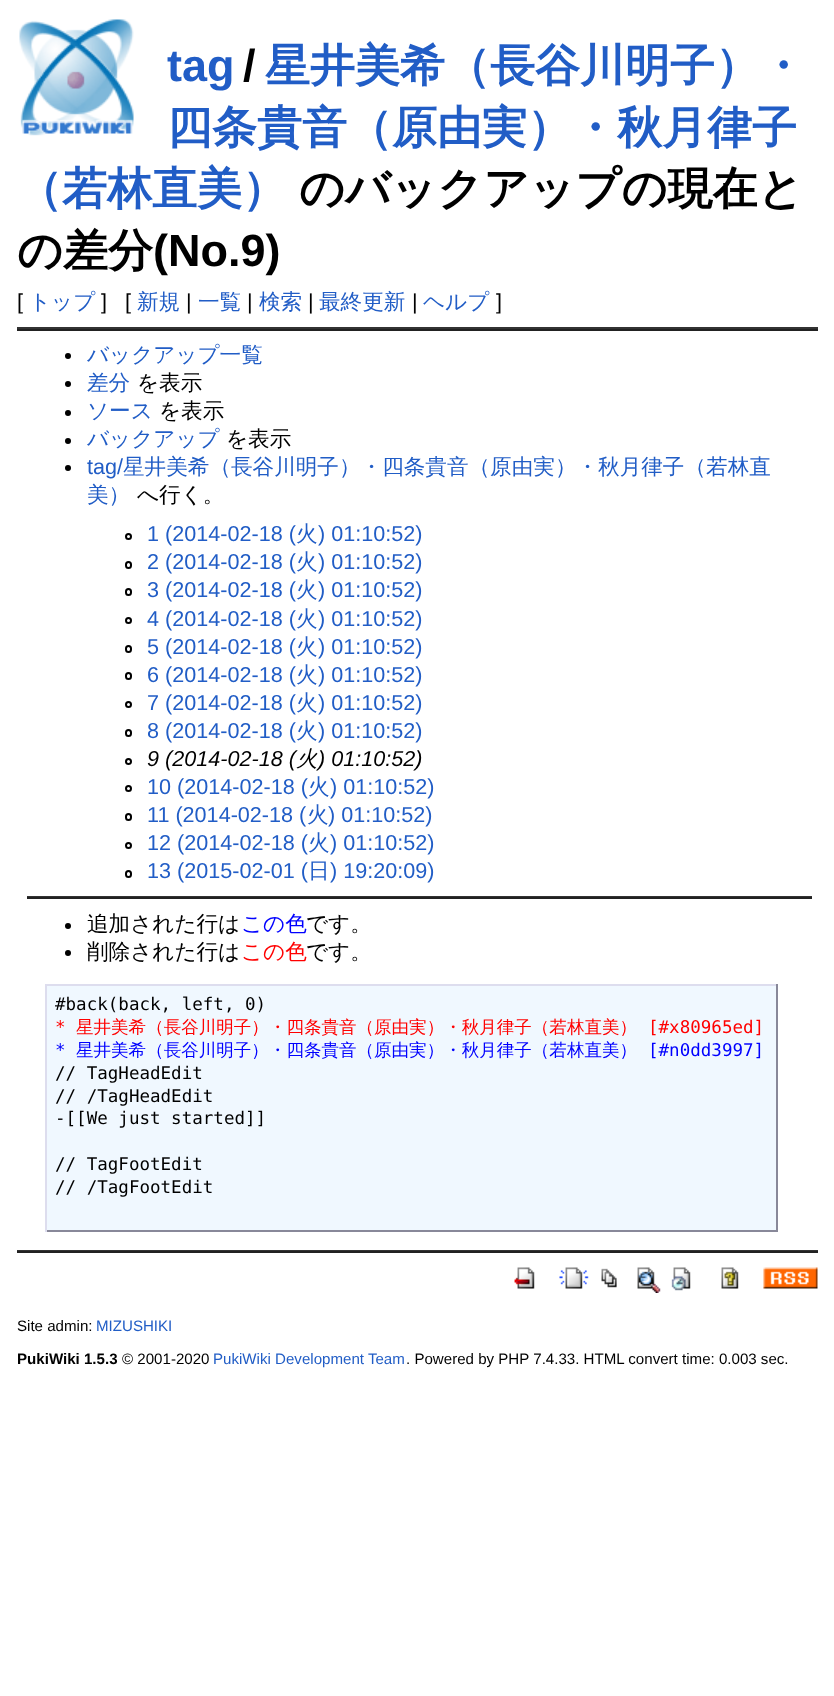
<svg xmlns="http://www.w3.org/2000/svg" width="834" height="1696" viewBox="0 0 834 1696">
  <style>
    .t1 { font: bold 45px Liberation Sans; fill: #215dc6; }
    .t2 { font: bold 45px Liberation Sans; fill: #000; }
    .t3 { font: bold 45px WenQuanYi Zen Hei; fill: #215dc6; }
    .t4 { font: bold 45px WenQuanYi Zen Hei; fill: #000; }
    .t5 { font: 21.6px Liberation Sans; fill: #000; }
    .t6 { font: 500 21.6px WenQuanYi Zen Hei; fill: #215dc6; }
    .t7 { font: 500 21.6px WenQuanYi Zen Hei; fill: #000; }
    .t8 { font: 21.6px Liberation Sans; fill: #215dc6; }
    .t9 { font: italic 21.6px Liberation Sans; fill: #000; }
    .t10 { font: italic 500 21.6px WenQuanYi Zen Hei; fill: #000; }
    .t11 { font: 500 21.6px WenQuanYi Zen Hei; fill: #00f; }
    .t12 { font: 500 21.6px WenQuanYi Zen Hei; fill: #f00; }
    .t13 { font: 17.55px DejaVu Sans Mono; fill: #000; }
    .t14 { font: 17.55px DejaVu Sans Mono; fill: #f00; }
    .t15 { font: 500 17.55px WenQuanYi Zen Hei; fill: #f00; }
    .t16 { font: 17.55px DejaVu Sans Mono; fill: #00f; }
    .t17 { font: 500 17.55px WenQuanYi Zen Hei; fill: #00f; }
    .t18 { font: 15.1px Liberation Sans; fill: #000; }
    .t19 { font: 15.1px Liberation Sans; fill: #215dc6; }
    .t20 { font: bold 15.1px Liberation Sans; fill: #000; }
  </style>
  <rect width="100%" height="100%" fill="#fff"/>
  <image x="19" y="19" width="115" height="117" href="images/1.png"/>
  <text x="167" y="81" class="t1">tag</text>
  <text x="243" y="81" class="t2">/</text>
  <text x="265" y="81" class="t3">星井美希（長谷川明子）・</text>
  <text x="167" y="143" class="t3">四条貴音（原由実）・秋月律子</text>
  <text x="17" y="204" class="t3">（若林直美）</text>
  <text x="299" y="204" class="t4">のバックアップの現在と</text>
  <text x="17" y="266" class="t4">の差分</text>
  <text x="153" y="266" class="t2">(No.9)</text>
  <text x="17" y="309" class="t5">[</text>
  <text x="29" y="309" class="t6">トップ</text>
  <text x="101" y="309" class="t5">]</text>
  <text x="125" y="309" class="t5">[</text>
  <text x="137" y="309" class="t6">新規</text>
  <text x="186" y="309" class="t5">|</text>
  <text x="198" y="309" class="t6">一覧</text>
  <text x="247" y="309" class="t5">|</text>
  <text x="259" y="309" class="t6">検索</text>
  <text x="308" y="309" class="t5">|</text>
  <text x="319" y="309" class="t6">最終更新</text>
  <text x="412" y="309" class="t5">|</text>
  <text x="423" y="309" class="t6">ヘルプ</text>
  <text x="496" y="309" class="t5">]</text>
  <rect x="17" y="327" width="801" height="2" fill="#333"/>
  <rect x="17" y="329" width="801" height="2" fill="#222"/>
  <circle cx="68" cy="356" r="3" fill="#000"/>
  <text x="87" y="362" class="t6">バックアップ一覧</text>
  <circle cx="68" cy="384" r="3" fill="#000"/>
  <text x="87" y="390" class="t6">差分</text>
  <text x="137" y="390" class="t7">を表示</text>
  <circle cx="68" cy="413" r="3" fill="#000"/>
  <text x="87" y="418" class="t6">ソース</text>
  <text x="159" y="418" class="t7">を表示</text>
  <circle cx="68" cy="441" r="3" fill="#000"/>
  <text x="87" y="446" class="t6">バックアップ</text>
  <text x="226" y="446" class="t7">を表示</text>
  <circle cx="68" cy="468" r="3" fill="#000"/>
  <text x="87" y="474" class="t8">tag/</text>
  <text x="123" y="474" class="t6">星井美希（長谷川明子）・四条貴音（原由実）・秋月律子（若林直</text>
  <text x="87" y="502" class="t6">美）</text>
  <text x="137" y="502" class="t7">へ行く。</text>
  <circle cx="128.5" cy="536.5" r="2.5" fill="none" stroke="#000" stroke-width="2"/>
  <text x="147" y="541" class="t8">1 (2014-02-18 (</text>
  <text x="296" y="541" class="t6">火</text>
  <text x="318" y="541" class="t8">) 01:10:52)</text>
  <rect x="126" y="562" width="5" height="6" rx="2.5" fill="none" stroke="#000" stroke-width="2"/>
  <text x="147" y="569" class="t8">2 (2014-02-18 (</text>
  <text x="296" y="569" class="t6">火</text>
  <text x="318" y="569" class="t8">) 01:10:52)</text>
  <rect x="126" y="589" width="5" height="6" rx="2.5" fill="none" stroke="#000" stroke-width="2"/>
  <text x="147" y="597" class="t8">3 (2014-02-18 (</text>
  <text x="296" y="597" class="t6">火</text>
  <text x="318" y="597" class="t8">) 01:10:52)</text>
  <circle cx="128.5" cy="620.5" r="2.5" fill="none" stroke="#000" stroke-width="2"/>
  <text x="147" y="626" class="t8">4 (2014-02-18 (</text>
  <text x="296" y="626" class="t6">火</text>
  <text x="318" y="626" class="t8">) 01:10:52)</text>
  <rect x="126" y="646" width="5" height="6" rx="2.5" fill="none" stroke="#000" stroke-width="2"/>
  <text x="147" y="654" class="t8">5 (2014-02-18 (</text>
  <text x="296" y="654" class="t6">火</text>
  <text x="318" y="654" class="t8">) 01:10:52)</text>
  <rect x="126" y="673" width="5" height="6" rx="2.5" fill="none" stroke="#000" stroke-width="2"/>
  <text x="147" y="682" class="t8">6 (2014-02-18 (</text>
  <text x="296" y="682" class="t6">火</text>
  <text x="318" y="682" class="t8">) 01:10:52)</text>
  <circle cx="128.5" cy="704.5" r="2.5" fill="none" stroke="#000" stroke-width="2"/>
  <text x="147" y="710" class="t8">7 (2014-02-18 (</text>
  <text x="296" y="710" class="t6">火</text>
  <text x="318" y="710" class="t8">) 01:10:52)</text>
  <rect x="126" y="730" width="5" height="6" rx="2.5" fill="none" stroke="#000" stroke-width="2"/>
  <text x="147" y="738" class="t8">8 (2014-02-18 (</text>
  <text x="296" y="738" class="t6">火</text>
  <text x="318" y="738" class="t8">) 01:10:52)</text>
  <circle cx="128.5" cy="761.5" r="2.5" fill="none" stroke="#000" stroke-width="2"/>
  <text x="147" y="766" class="t9">9 (2014-02-18 (</text>
  <text x="296" y="766" class="t10">火</text>
  <text x="318" y="766" class="t9">) 01:10:52)</text>
  <circle cx="128.5" cy="788.5" r="2.5" fill="none" stroke="#000" stroke-width="2"/>
  <text x="147" y="794" class="t8">10 (2014-02-18 (</text>
  <text x="308" y="794" class="t6">火</text>
  <text x="330" y="794" class="t8">) 01:10:52)</text>
  <rect x="126" y="814" width="5" height="6" rx="2.5" fill="none" stroke="#000" stroke-width="2"/>
  <text x="147" y="822" class="t8">11 (2014-02-18 (</text>
  <text x="307" y="822" class="t6">火</text>
  <text x="328" y="822" class="t8">) 01:10:52)</text>
  <circle cx="128.5" cy="845.5" r="2.5" fill="none" stroke="#000" stroke-width="2"/>
  <text x="147" y="850" class="t8">12 (2014-02-18 (</text>
  <text x="308" y="850" class="t6">火</text>
  <text x="330" y="850" class="t8">) 01:10:52)</text>
  <rect x="126" y="871" width="5" height="6" rx="2.5" fill="none" stroke="#000" stroke-width="2"/>
  <text x="147" y="878" class="t8">13 (2015-02-01 (</text>
  <text x="308" y="878" class="t6">日</text>
  <text x="330" y="878" class="t8">) 19:20:09)</text>
  <rect x="27" y="896" width="785" height="1" fill="#333"/>
  <rect x="27" y="897" width="785" height="2" fill="#222"/>
  <circle cx="68" cy="926" r="3" fill="#000"/>
  <text x="87" y="931" class="t7">追加された行は</text>
  <text x="241" y="931" class="t11">この色</text>
  <text x="306" y="931" class="t7">です。</text>
  <circle cx="68" cy="953" r="3" fill="#000"/>
  <text x="87" y="959" class="t7">削除された行は</text>
  <text x="241" y="959" class="t12">この色</text>
  <text x="306" y="959" class="t7">です。</text>
  <rect x="47" y="986" width="729" height="244" fill="#f0f8ff"/>
  <rect x="45" y="984" width="732" height="2" fill="#dde"/>
  <rect x="776" y="984" width="2" height="248" fill="#889"/>
  <rect x="45" y="1230" width="732" height="2" fill="#889"/>
  <rect x="45" y="984" width="2" height="248" fill="#dde"/>
  <text x="55" y="1010" class="t13">#back(back, left, 0)</text>
  <text x="55" y="1033" class="t14">*</text>
  <text x="76" y="1033" class="t15">星井美希（長谷川明子）・四条貴音（原由実）・秋月律子（若林直美）</text>
  <text x="648" y="1033" class="t14">[#x80965ed]</text>
  <text x="55" y="1056" class="t16">*</text>
  <text x="76" y="1056" class="t17">星井美希（長谷川明子）・四条貴音（原由実）・秋月律子（若林直美）</text>
  <text x="648" y="1056" class="t16">[#n0dd3997]</text>
  <text x="55" y="1079" class="t13">// TagHeadEdit</text>
  <text x="55" y="1102" class="t13">// /TagHeadEdit</text>
  <text x="55" y="1124" class="t13">-[[We just started]]</text>
  <text x="55" y="1170" class="t13">// TagFootEdit</text>
  <text x="55" y="1193" class="t13">// /TagFootEdit</text>
  <rect x="17" y="1250" width="801" height="1" fill="#333"/>
  <rect x="17" y="1251" width="801" height="2" fill="#222"/>
  <image x="514" y="1267" width="21" height="22" href="images/2.png"/>
  <image x="559" y="1267" width="30" height="22" href="images/3.png"/>
  <image x="601" y="1268" width="16" height="20" href="images/4.png"/>
  <image x="637" y="1267" width="24" height="26" href="images/5.png"/>
  <image x="671" y="1267" width="20" height="24" href="images/6.png"/>
  <image x="721" y="1267" width="18" height="22" href="images/7.png"/>
  <image x="763" y="1267" width="55" height="22" href="images/8.png"/>
  <text x="17" y="1331" class="t18">Site admin:</text>
  <text x="96" y="1331" class="t19">MIZUSHIKI</text>
  <text x="17" y="1364" class="t20">PukiWiki 1.5.3</text>
  <text x="122" y="1364" class="t18">© 2001-2020</text>
  <text x="213" y="1364" class="t19">PukiWiki Development Team</text>
  <text x="406" y="1364" class="t18">. Powered by PHP 7.4.33. HTML convert time: 0.003 sec.</text>
</svg>
